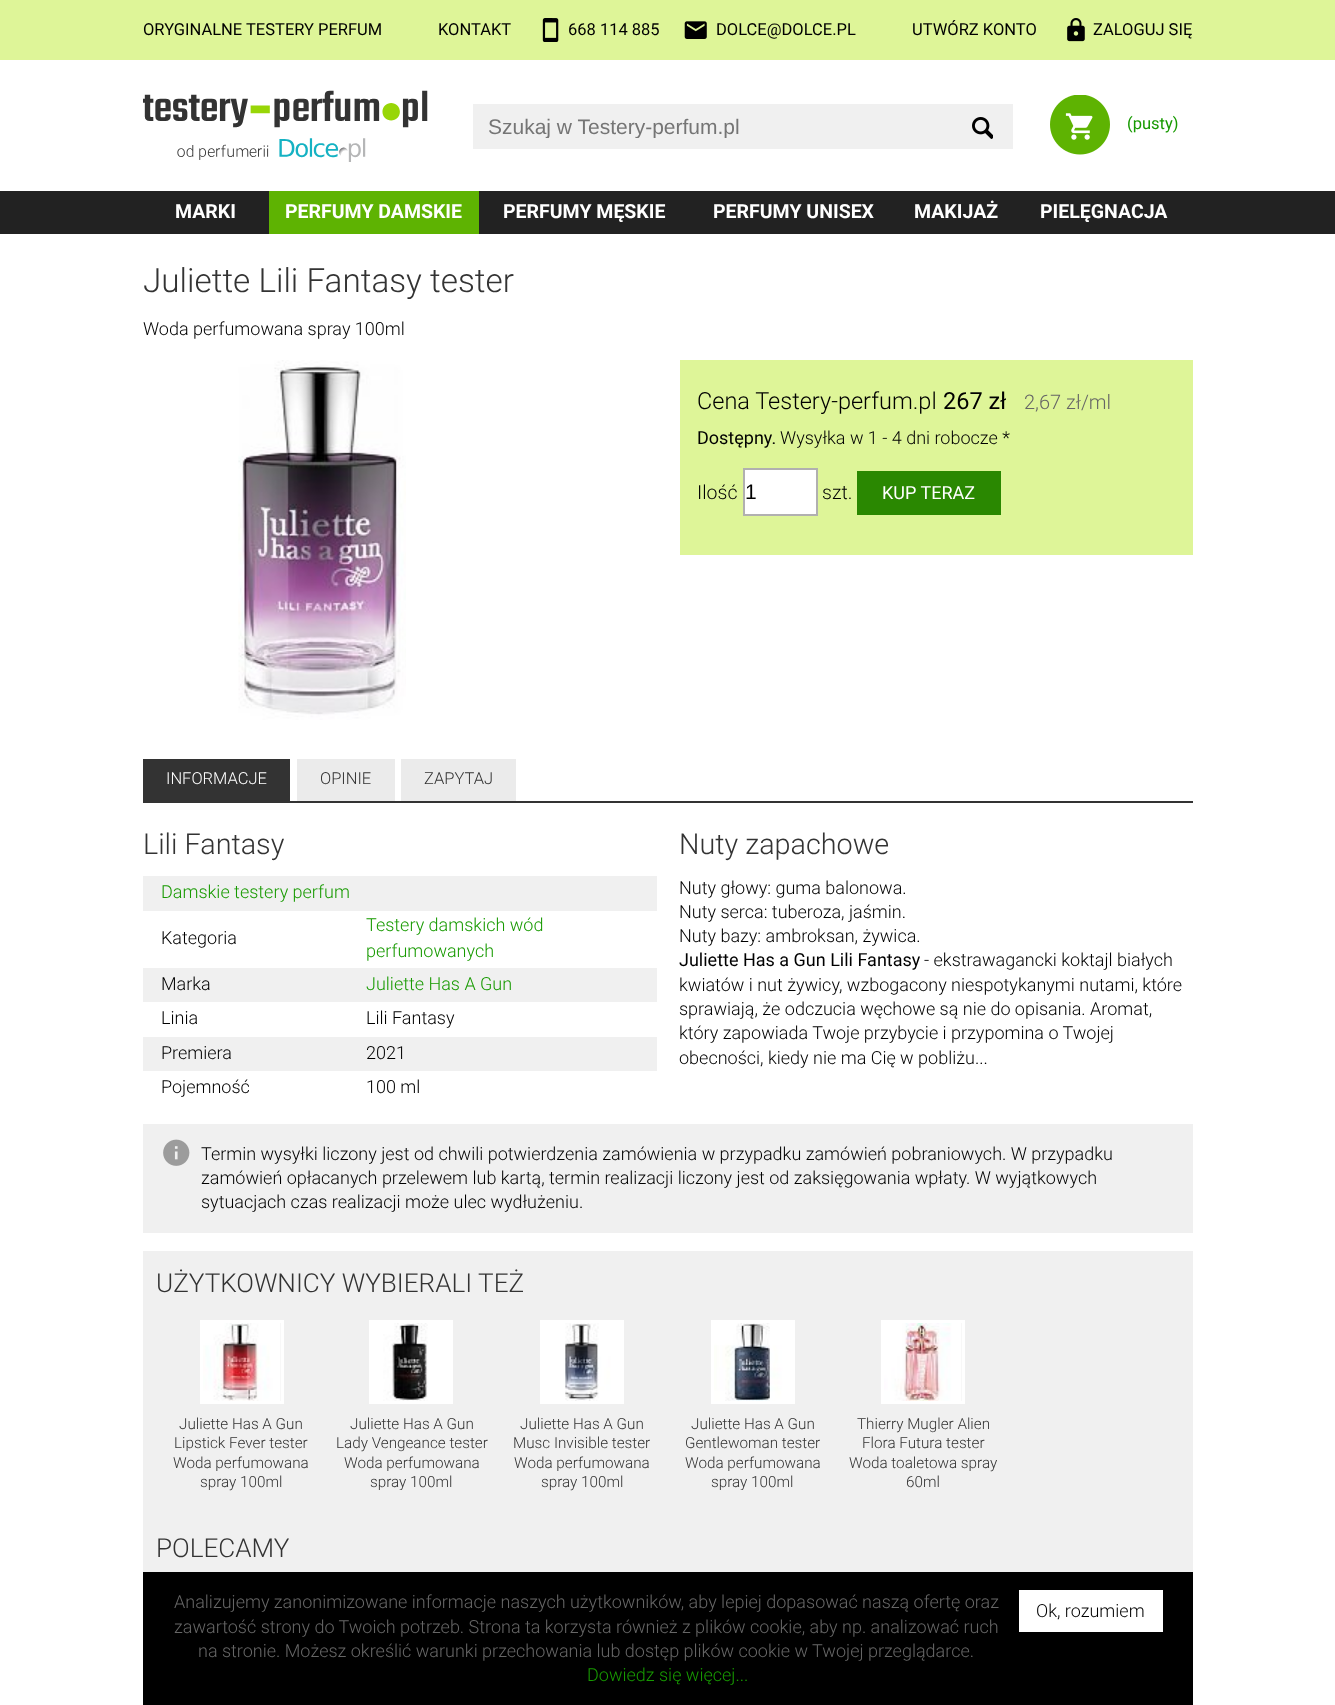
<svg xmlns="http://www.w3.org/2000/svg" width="1335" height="1705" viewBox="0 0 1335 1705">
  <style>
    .t1 { font: 16.5px Roboto; fill: #000; }
    .t2 { font: 21px Liberation Sans; fill: #757575; }
    .t3 { font: 16.5px Roboto; fill: #179a01; }
    .t4 { font: bold 19.5px Roboto; fill: #fff; }
    .t5 { font: 300 33.25px Roboto; fill: #333; }
    .t6 { font: 300 18px Roboto; fill: #000; }
    .t7 { font: 300 23.5px Roboto; fill: #000; }
    .t8 { font: 23.5px Roboto; fill: #000; }
    .t9 { font: 300 20px Roboto; fill: #666; }
    .t10 { font: 18px Roboto; fill: #000; }
    .t11 { font: 300 19.5px Roboto; fill: #000; }
    .t12 { font: 21px Liberation Sans; fill: #000; }
    .t13 { font: 18px Roboto; fill: #fff; }
    .t14 { font: 300 16.5px Roboto; fill: #fff; }
    .t15 { font: 300 16.5px Roboto; fill: #333; }
    .t16 { font: 300 28.75px Roboto; fill: #333; }
    .t17 { font: 300 18px Roboto; fill: #179a01; }
    .t18 { font: 300 26.1px Roboto; fill: #333; }
    .t19 { font: 300 15.25px Roboto; fill: #333; }
    .t20 { font: 300 18px Roboto; fill: #666; }
  </style>
  <defs>
    <clipPath id="clip1"><rect x="488" y="114" width="442" height="24"/></clipPath>
    <clipPath id="clip2"><rect x="335" y="1416" width="154" height="74"/></clipPath>
    <clipPath id="clip3"><rect x="675" y="1416" width="156" height="74"/></clipPath>
  </defs>
  <rect width="100%" height="100%" fill="#fff"/>
  <rect x="0" y="0" width="1335" height="60" fill="#def598"/>
  <text x="143" y="35" class="t1">ORYGINALNE TESTERY PERFUM</text>
  <text x="438" y="35" class="t1">KONTAKT</text>
  <image x="542" y="18" width="17" height="24" href="images/1.png"/>
  <text x="568" y="35" class="t1">668 114 885</text>
  <image x="684" y="21" width="23" height="18" href="images/2.png"/>
  <text x="716" y="35" class="t1">DOLCE@DOLCE.PL</text>
  <text x="912" y="35" class="t1">UTWÓRZ KONTO</text>
  <image x="1067" y="18" width="18" height="24" href="images/3.png"/>
  <text x="1093" y="35" class="t1">ZALOGUJ SIĘ</text>
  <image x="143" y="90" width="285" height="72" href="images/4.png"/>
  <rect x="473" y="104" width="540" height="45" fill="#f0f0f0"/>
  <g clip-path="url(#clip1)">
    <text x="488" y="134" class="t2">Szukaj w Testery-perfum.pl</text>
  </g>
  <image x="972" y="117" width="21" height="22" href="images/5.png"/>
  <image x="1050" y="95" width="60" height="60" href="images/6.png"/>
  <text x="1127" y="129" class="t3">(pusty)</text>
  <rect x="0" y="191" width="1335" height="43" fill="#222"/>
  <text x="175" y="218" class="t4">MARKI</text>
  <rect x="269" y="191" width="210" height="43" fill="#5eb302"/>
  <text x="285" y="218" class="t4">PERFUMY DAMSKIE</text>
  <text x="503" y="218" class="t4">PERFUMY MĘSKIE</text>
  <text x="713" y="218" class="t4">PERFUMY UNISEX</text>
  <text x="914" y="218" class="t4">MAKIJAŻ</text>
  <text x="1040" y="218" class="t4">PIELĘGNACJA</text>
  <text x="143" y="292" class="t5">Juliette Lili Fantasy tester</text>
  <text x="143" y="335" class="t6">Woda perfumowana spray 100ml</text>
  <image x="238" y="360" width="168" height="360" href="images/7.png"/>
  <rect x="680" y="360" width="513" height="195" fill="#def598"/>
  <text x="697" y="409" class="t7">Cena Testery-perfum.pl</text>
  <text x="943" y="409" class="t8">267 zł</text>
  <text x="1024" y="409" class="t9">2,67 zł/ml</text>
  <text x="697" y="444" class="t10">Dostępny.</text>
  <text x="780" y="444" class="t6">Wysyłka w 1 - 4 dni robocze *</text>
  <text x="697" y="499" class="t11">Ilość</text>
  <rect x="744" y="469" width="73" height="46" fill="#fff" stroke="#b1b0b0" stroke-width="2"/>
  <text x="745" y="499" class="t12">1</text>
  <text x="822" y="499" class="t11">szt.</text>
  <rect x="857" y="471" width="144" height="44" fill="#2a8801"/>
  <text x="882" y="499" class="t13">KUP TERAZ</text>
  <rect x="143" y="801" width="1050" height="2" fill="#333"/>
  <rect x="143" y="759" width="147" height="42" fill="#333"/>
  <text x="166" y="784" class="t14">INFORMACJE</text>
  <rect x="297" y="759" width="98" height="42" fill="#ebebeb"/>
  <text x="320" y="784" class="t15">OPINIE</text>
  <rect x="401" y="759" width="115" height="42" fill="#ebebeb"/>
  <text x="424" y="784" class="t15">ZAPYTAJ</text>
  <text x="143" y="854" class="t16">Lili Fantasy</text>
  <rect x="143" y="876" width="514" height="35" fill="#f0f0f0"/>
  <text x="161" y="898" class="t17">Damskie testery perfum</text>
  <text x="161" y="944" class="t6">Kategoria</text>
  <text x="366" y="931" class="t17">Testery damskich wód</text>
  <text x="366" y="957" class="t17">perfumowanych</text>
  <rect x="143" y="968" width="514" height="34" fill="#f0f0f0"/>
  <text x="161" y="990" class="t6">Marka</text>
  <text x="366" y="990" class="t17">Juliette Has A Gun</text>
  <text x="161" y="1024" class="t6">Linia</text>
  <text x="366" y="1024" class="t6">Lili Fantasy</text>
  <rect x="143" y="1037" width="514" height="34" fill="#f0f0f0"/>
  <text x="161" y="1059" class="t6">Premiera</text>
  <text x="366" y="1059" class="t6">2021</text>
  <text x="161" y="1093" class="t6">Pojemność</text>
  <text x="366" y="1093" class="t6">100 ml</text>
  <text x="679" y="854" class="t16">Nuty zapachowe</text>
  <text x="679" y="894" class="t6">Nuty głowy: guma balonowa.</text>
  <text x="679" y="918" class="t6">Nuty serca: tuberoza, jaśmin.</text>
  <text x="679" y="942" class="t6">Nuty bazy: ambroksan, żywica.</text>
  <text x="679" y="966" class="t10">Juliette Has a Gun Lili Fantasy</text>
  <text x="924" y="966" class="t6">- ekstrawagancki koktajl białych</text>
  <text x="679" y="991" class="t6">kwiatów i nut żywicy, wzbogacony niespotykanymi nutami, które</text>
  <text x="679" y="1015" class="t6">sprawiają, że odczucia węchowe są nie do opisania. Aromat,</text>
  <text x="679" y="1039" class="t6">który zapowiada Twoje przybycie i przypomina o Twojej</text>
  <text x="679" y="1064" class="t6">obecności, kiedy nie ma Cię w pobliżu...</text>
  <rect x="143" y="1124" width="1050" height="109" fill="#f0f0f0"/>
  <image x="163" y="1139" width="27" height="27" href="images/8.png"/>
  <text x="201" y="1160" class="t6">Termin wysyłki liczony jest od chwili potwierdzenia zamówienia w przypadku zamówień pobraniowych. W przypadku</text>
  <text x="201" y="1184" class="t6">zamówień opłacanych przelewem lub kartą, termin realizacji liczony jest od zaksięgowania wpłaty. W wyjątkowych</text>
  <text x="201" y="1208" class="t6">sytuacjach czas realizacji może ulec wydłużeniu.</text>
  <rect x="143" y="1251" width="1050" height="321" fill="#f0f0f0"/>
  <text x="156" y="1292" class="t18">UŻYTKOWNICY WYBIERALI TEŻ</text>
  <rect x="201.5" y="1321.5" width="81" height="81" fill="none" stroke="#fff" stroke-width="3"/>
  <image x="203" y="1323" width="78" height="78" href="images/9.png"/>
  <text x="179" y="1429" class="t19">Juliette Has A Gun</text>
  <text x="174" y="1448" class="t19">Lipstick Fever tester</text>
  <text x="173" y="1468" class="t19">Woda perfumowana</text>
  <text x="200" y="1487" class="t19">spray 100ml</text>
  <rect x="370.5" y="1321.5" width="81" height="81" fill="none" stroke="#fff" stroke-width="3"/>
  <image x="372" y="1323" width="78" height="78" href="images/10.png"/>
  <text x="350" y="1429" class="t19">Juliette Has A Gun</text>
  <text x="336" y="1448" class="t19">Lady Vengeance tester</text>
  <text x="344" y="1468" class="t19">Woda perfumowana</text>
  <g clip-path="url(#clip2)">
    <text x="370" y="1487" class="t19">spray 100ml</text>
  </g>
  <rect x="541.5" y="1321.5" width="81" height="81" fill="none" stroke="#fff" stroke-width="3"/>
  <image x="543" y="1323" width="78" height="78" href="images/11.png"/>
  <text x="520" y="1429" class="t19">Juliette Has A Gun</text>
  <text x="513" y="1448" class="t19">Musc Invisible tester</text>
  <text x="514" y="1468" class="t19">Woda perfumowana</text>
  <text x="541" y="1487" class="t19">spray 100ml</text>
  <rect x="712.5" y="1321.5" width="81" height="81" fill="none" stroke="#fff" stroke-width="3"/>
  <image x="714" y="1323" width="78" height="78" href="images/12.png"/>
  <text x="691" y="1429" class="t19">Juliette Has A Gun</text>
  <text x="685" y="1448" class="t19">Gentlewoman tester</text>
  <text x="685" y="1468" class="t19">Woda perfumowana</text>
  <g clip-path="url(#clip3)">
    <text x="711" y="1487" class="t19">spray 100ml</text>
  </g>
  <rect x="882.5" y="1321.5" width="81" height="81" fill="none" stroke="#fff" stroke-width="3"/>
  <image x="884" y="1323" width="78" height="78" href="images/13.png"/>
  <text x="857" y="1429" class="t19">Thierry Mugler Alien</text>
  <text x="862" y="1448" class="t19">Flora Futura tester</text>
  <text x="849" y="1468" class="t19">Woda toaletowa spray</text>
  <text x="906" y="1487" class="t19">60ml</text>
  <text x="156" y="1557" class="t18">POLECAMY</text>
  <rect x="143" y="1572" width="1050" height="133" fill="#000"/>
  <text x="174" y="1608" class="t20">Analizujemy zanonimizowane informacje naszych użytkowników, aby lepiej dopasować naszą ofertę oraz</text>
  <rect x="1019" y="1590" width="144" height="42" fill="#fff"/>
  <text x="1036" y="1617" class="t6">Ok, rozumiem</text>
  <text x="174" y="1633" class="t20">zawartość strony do Twoich potrzeb. Strona ta korzysta również z plików cookie, aby np. analizować ruch</text>
  <text x="198" y="1657" class="t20">na stronie. Możesz określić warunki przechowania lub dostęp plików cookie w Twojej przeglądarce.</text>
  <text x="587" y="1681" class="t17">Dowiedz się więcej...</text>
</svg>
